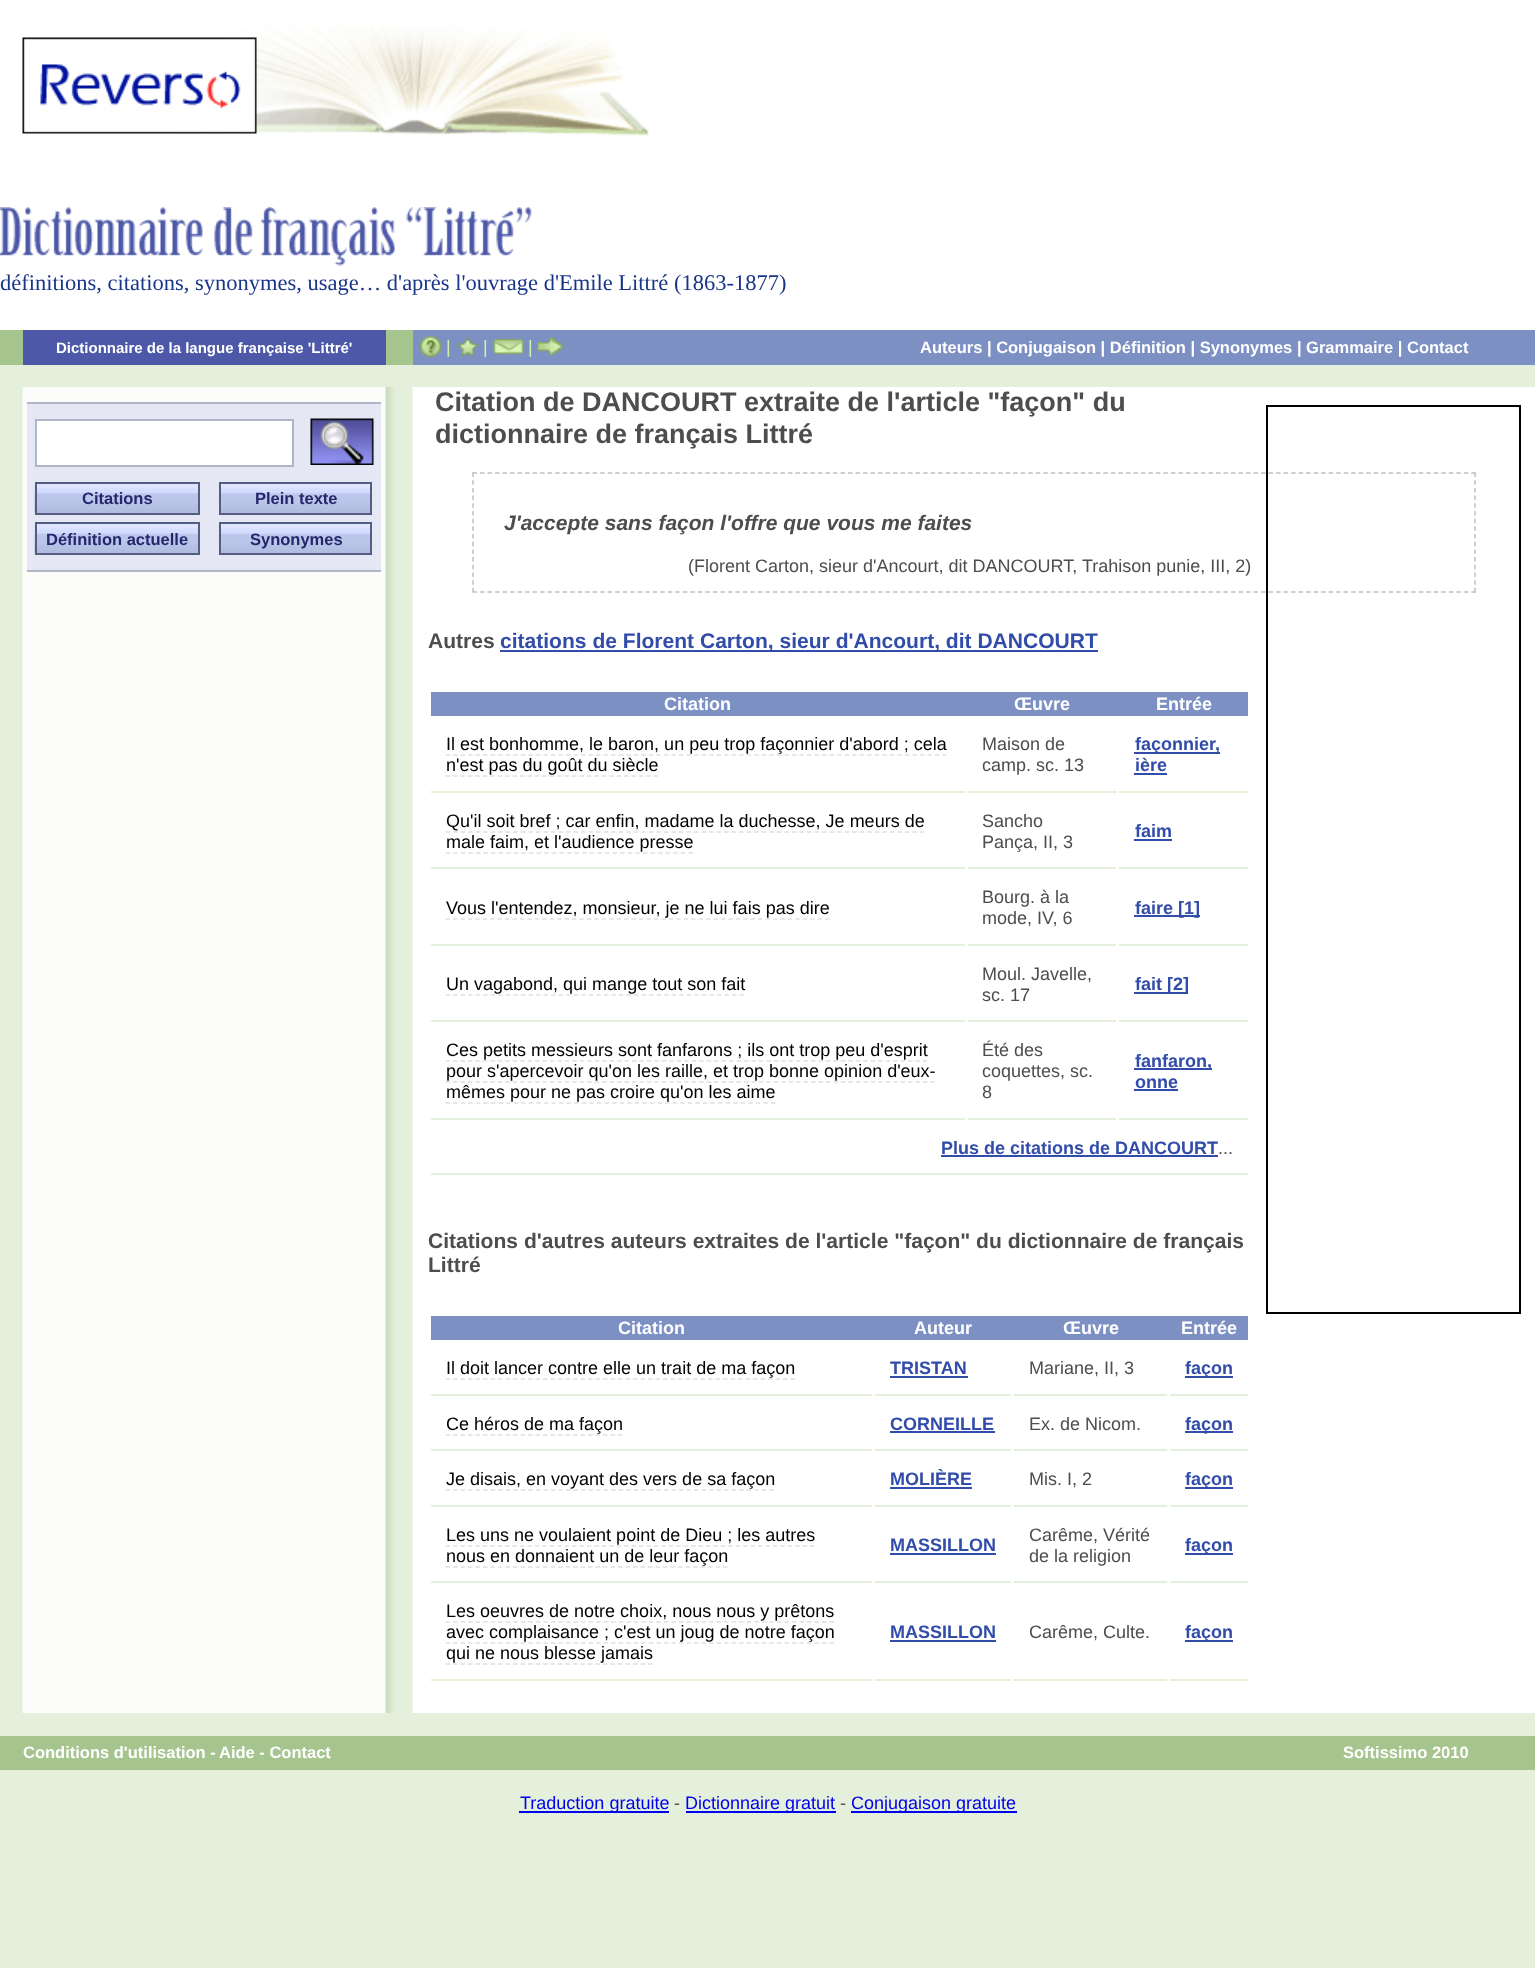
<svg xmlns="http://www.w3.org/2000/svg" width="1535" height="1968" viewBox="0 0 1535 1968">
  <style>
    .t1 { font: 22.5px Liberation Serif; fill: #183589; }
    .t2 { font: bold 15px Liberation Sans; fill: #fff; }
    .t3 { font: 18px Liberation Sans; fill: #d2efad; }
    .t4 { font: bold 16.5px Liberation Sans; fill: #fff; }
    .t5 { font: bold 16.5px Liberation Sans; fill: #23276c; }
    .t6 { font: bold 27px Liberation Sans; fill: #4d4d4d; }
    .t7 { font: italic bold 21px Liberation Sans; fill: #4d4d4d; }
    .t8 { font: 18px Liberation Sans; fill: #4d4d4d; }
    .t9 { font: bold 21.05px Liberation Sans; fill: #4d4d4d; }
    .t10 { font: bold 21.05px Liberation Sans; fill: #324ca9; }
    .t11 { font: bold 18px Liberation Sans; fill: #fff; }
    .t12 { font: 18px Liberation Sans; fill: #000; }
    .t13 { font: bold 18px Liberation Sans; fill: #324ca9; }
    .t14 { font: 18px Liberation Sans; fill: #00e; }
  </style>
  <rect width="100%" height="100%" fill="#e4f0db"/>
  <rect x="0" y="0" width="1535" height="330" fill="#fff"/>
  <image x="175" y="26" width="474" height="110" href="images/1.png"/>
  <image x="22" y="37" width="235" height="97" href="images/2.png"/>
  <image x="0" y="207" width="532" height="59" href="images/3.png"/>
  <text x="0" y="290" class="t1">définitions, citations, synonymes, usage… d'après l'ouvrage d'Emile Littré (1863-1877)</text>
  <rect x="0" y="330" width="413" height="35" fill="#a6c58e"/>
  <rect x="23" y="330" width="363" height="35" fill="#4d59a8"/>
  <text x="56" y="353" class="t2">Dictionnaire de la langue française 'Littré'</text>
  <rect x="413" y="330" width="1122" height="35" fill="#7d90c3"/>
  <image x="420" y="335" width="21" height="23" href="images/4.png"/>
  <text x="446" y="353" class="t3">|</text>
  <image x="456" y="336" width="23" height="22" href="images/5.png"/>
  <text x="483" y="353" class="t3">|</text>
  <image x="493" y="338" width="31" height="17" href="images/6.png"/>
  <text x="528" y="353" class="t3">|</text>
  <image x="537" y="337" width="26" height="19" href="images/7.png"/>
  <text x="920" y="353" class="t4">Auteurs | Conjugaison | Définition | Synonymes | Grammaire | Contact</text>
  <rect x="412" y="387" width="1123" height="1326" fill="#fff"/>
  <image x="0" y="387" width="413" height="1326" href="images/8.png"/>
  <rect x="27" y="404" width="354" height="166" fill="#e5e8f4"/>
  <rect x="27" y="402" width="354" height="2" fill="#b0b5c8"/>
  <rect x="27" y="570" width="354" height="2" fill="#b0b5c8"/>
  <rect x="36" y="420" width="257" height="46" fill="#fff" stroke="#b0b5c8" stroke-width="2"/>
  <image x="310" y="418" width="64" height="47" href="images/9.png"/>
  <image x="34" y="483" width="164" height="30" href="images/10.png"/>
  <rect x="36" y="483" width="163" height="31" fill="none" stroke="#545d82" stroke-width="2"/>
  <text x="82" y="504" class="t5">Citations</text>
  <image x="221" y="484" width="149" height="29" href="images/11.png"/>
  <rect x="220" y="483" width="151" height="31" fill="none" stroke="#545d82" stroke-width="2"/>
  <text x="255" y="504" class="t5">Plein texte</text>
  <image x="34" y="523" width="164" height="31" href="images/12.png"/>
  <rect x="36" y="523" width="163" height="31" fill="none" stroke="#545d82" stroke-width="2"/>
  <text x="46" y="545" class="t5">Définition actuelle</text>
  <image x="221" y="524" width="149" height="29" href="images/13.png"/>
  <rect x="220" y="523" width="151" height="31" fill="none" stroke="#545d82" stroke-width="2"/>
  <text x="250" y="545" class="t5">Synonymes</text>
  <text x="435" y="411" class="t6">Citation de DANCOURT extraite de l'article "façon" du</text>
  <text x="435" y="443" class="t6">dictionnaire de français Littré</text>
  <path d="M472.5 473H1476" fill="none" stroke="#c0c0c0" stroke-width="1.5" stroke-dasharray="4.5 3.01"/>
  <path d="M1475 472.5V592.5" fill="none" stroke="#c0c0c0" stroke-width="1.5" stroke-dasharray="4.5 3.19"/>
  <path d="M472.5 592H1476" fill="none" stroke="#c0c0c0" stroke-width="1.5" stroke-dasharray="4.5 3.01"/>
  <path d="M473 472.5V592.5" fill="none" stroke="#c0c0c0" stroke-width="1.5" stroke-dasharray="4.5 3.19"/>
  <text x="504" y="530" class="t7">J'accepte sans façon l'offre que vous me faites</text>
  <text x="688" y="572" class="t8">(Florent Carton, sieur d'Ancourt, dit DANCOURT, Trahison punie, III, 2)</text>
  <text x="428" y="648" class="t9">Autres</text>
  <rect x="500" y="650" width="598" height="2" fill="#324ca9"/>
  <text x="500" y="648" class="t10">citations de Florent Carton, sieur d'Ancourt, dit DANCOURT</text>
  <rect x="431" y="692" width="817" height="24" fill="#7d90c3"/>
  <text x="664" y="710" class="t11">Citation</text>
  <text x="1014" y="710" class="t11">Œuvre</text>
  <text x="1156" y="710" class="t11">Entrée</text>
  <rect x="431" y="791" width="534" height="2" fill="#e4f0db"/>
  <text x="446" y="750" class="t12">Il est bonhomme, le baron, un peu trop façonnier d'abord ; cela</text>
  <path d="M445.5 755H946.5" fill="none" stroke="#e0e0e0" stroke-width="1.5" stroke-dasharray="4.5 3.03"/>
  <text x="446" y="771" class="t12">n'est pas du goût du siècle</text>
  <path d="M445.5 776H658.5" fill="none" stroke="#e0e0e0" stroke-width="1.5" stroke-dasharray="4.5 2.94"/>
  <rect x="968" y="791" width="148" height="2" fill="#e4f0db"/>
  <text x="982" y="750" class="t8">Maison de</text>
  <text x="982" y="771" class="t8">camp. sc. 13</text>
  <rect x="1119" y="791" width="129" height="2" fill="#e4f0db"/>
  <rect x="1134" y="752" width="86" height="2" fill="#324ca9"/>
  <text x="1135" y="750" class="t13">façonnier,</text>
  <text x="1135" y="771" class="t13">ière</text>
  <rect x="1134" y="773" width="33" height="2" fill="#324ca9"/>
  <rect x="431" y="867" width="534" height="2" fill="#e4f0db"/>
  <text x="446" y="827" class="t12">Qu'il soit bref ; car enfin, madame la duchesse, Je meurs de</text>
  <path d="M445.5 832H924" fill="none" stroke="#e0e0e0" stroke-width="1.5" stroke-dasharray="4.5 3.03"/>
  <text x="446" y="848" class="t12">male faim, et l'audience presse</text>
  <path d="M445.5 853H693" fill="none" stroke="#e0e0e0" stroke-width="1.5" stroke-dasharray="4.5 3.09"/>
  <rect x="968" y="867" width="148" height="2" fill="#e4f0db"/>
  <text x="982" y="827" class="t8">Sancho</text>
  <text x="982" y="848" class="t8">Pança, II, 3</text>
  <rect x="1119" y="867" width="129" height="2" fill="#e4f0db"/>
  <text x="1135" y="837" class="t13">faim</text>
  <rect x="1134" y="839" width="38" height="2" fill="#324ca9"/>
  <rect x="431" y="944" width="534" height="2" fill="#e4f0db"/>
  <text x="446" y="914" class="t12">Vous l'entendez, monsieur, je ne lui fais pas dire</text>
  <path d="M445.5 919H829.5" fill="none" stroke="#e0e0e0" stroke-width="1.5" stroke-dasharray="4.5 2.94"/>
  <rect x="968" y="944" width="148" height="2" fill="#e4f0db"/>
  <text x="982" y="903" class="t8">Bourg. à la</text>
  <text x="982" y="924" class="t8">mode, IV, 6</text>
  <rect x="1119" y="944" width="129" height="2" fill="#e4f0db"/>
  <rect x="1134" y="915" width="66" height="2" fill="#324ca9"/>
  <text x="1135" y="914" class="t13">faire [1]</text>
  <rect x="431" y="1020" width="534" height="2" fill="#e4f0db"/>
  <text x="446" y="990" class="t12">Un vagabond, qui mange tout son fait</text>
  <path d="M445.5 995H744" fill="none" stroke="#e0e0e0" stroke-width="1.5" stroke-dasharray="4.5 3.04"/>
  <rect x="968" y="1020" width="148" height="2" fill="#e4f0db"/>
  <text x="982" y="980" class="t8">Moul. Javelle,</text>
  <text x="982" y="1001" class="t8">sc. 17</text>
  <rect x="1119" y="1020" width="129" height="2" fill="#e4f0db"/>
  <rect x="1134" y="992" width="54" height="2" fill="#324ca9"/>
  <text x="1135" y="990" class="t13">fait [2]</text>
  <rect x="431" y="1118" width="534" height="2" fill="#e4f0db"/>
  <text x="446" y="1056" class="t12">Ces petits messieurs sont fanfarons ; ils ont trop peu d'esprit</text>
  <path d="M445.5 1061H927" fill="none" stroke="#e0e0e0" stroke-width="1.5" stroke-dasharray="4.5 2.96"/>
  <text x="446" y="1077" class="t12">pour s'apercevoir qu'on les raille, et trop bonne opinion d'eux-</text>
  <path d="M445.5 1082H934.5" fill="none" stroke="#e0e0e0" stroke-width="1.5" stroke-dasharray="4.5 2.96"/>
  <text x="446" y="1098" class="t12">mêmes pour ne pas croire qu'on les aime</text>
  <path d="M445.5 1103H775.5" fill="none" stroke="#e0e0e0" stroke-width="1.5" stroke-dasharray="4.5 3.07"/>
  <rect x="968" y="1118" width="148" height="2" fill="#e4f0db"/>
  <text x="982" y="1056" class="t8">Été des</text>
  <text x="982" y="1077" class="t8">coquettes, sc.</text>
  <text x="982" y="1098" class="t8">8</text>
  <rect x="1119" y="1118" width="129" height="2" fill="#e4f0db"/>
  <rect x="1134" y="1068" width="78" height="2" fill="#324ca9"/>
  <text x="1135" y="1067" class="t13">fanfaron,</text>
  <text x="1135" y="1088" class="t13">onne</text>
  <rect x="1134" y="1089" width="44" height="2" fill="#324ca9"/>
  <rect x="431" y="1173" width="817" height="2" fill="#e4f0db"/>
  <text x="941" y="1154" class="t13">Plus de citations de DANCOURT</text>
  <rect x="941" y="1155" width="277" height="2" fill="#324ca9"/>
  <text x="1218" y="1154" class="t8">...</text>
  <text x="428" y="1248" class="t9">Citations d'autres auteurs extraites de l'article "façon" du dictionnaire de français</text>
  <text x="428" y="1272" class="t9">Littré</text>
  <rect x="431" y="1316" width="817" height="24" fill="#7d90c3"/>
  <text x="618" y="1334" class="t11">Citation</text>
  <text x="914" y="1334" class="t11">Auteur</text>
  <text x="1063" y="1334" class="t11">Œuvre</text>
  <text x="1181" y="1334" class="t11">Entrée</text>
  <rect x="431" y="1394" width="441" height="2" fill="#e4f0db"/>
  <text x="446" y="1374" class="t12">Il doit lancer contre elle un trait de ma façon</text>
  <path d="M445.5 1379H795" fill="none" stroke="#e0e0e0" stroke-width="1.5" stroke-dasharray="4.5 3"/>
  <rect x="875" y="1394" width="136" height="2" fill="#e4f0db"/>
  <text x="890" y="1374" class="t13">TRISTAN</text>
  <rect x="890" y="1376" width="78" height="2" fill="#324ca9"/>
  <rect x="1014" y="1394" width="153" height="2" fill="#e4f0db"/>
  <text x="1029" y="1374" class="t8">Mariane, II, 3</text>
  <rect x="1170" y="1394" width="78" height="2" fill="#e4f0db"/>
  <rect x="1185" y="1376" width="48" height="2" fill="#324ca9"/>
  <text x="1185" y="1374" class="t13">façon</text>
  <rect x="431" y="1449" width="441" height="2" fill="#e4f0db"/>
  <text x="446" y="1430" class="t12">Ce héros de ma façon</text>
  <path d="M445.5 1435H622.5" fill="none" stroke="#e0e0e0" stroke-width="1.5" stroke-dasharray="4.5 3"/>
  <rect x="875" y="1449" width="136" height="2" fill="#e4f0db"/>
  <text x="890" y="1430" class="t13">CORNEILLE</text>
  <rect x="890" y="1431" width="105" height="2" fill="#324ca9"/>
  <rect x="1014" y="1449" width="153" height="2" fill="#e4f0db"/>
  <text x="1029" y="1430" class="t8">Ex. de Nicom.</text>
  <rect x="1170" y="1449" width="78" height="2" fill="#e4f0db"/>
  <rect x="1185" y="1431" width="48" height="2" fill="#324ca9"/>
  <text x="1185" y="1430" class="t13">façon</text>
  <rect x="431" y="1505" width="441" height="2" fill="#e4f0db"/>
  <text x="446" y="1485" class="t12">Je disais, en voyant des vers de sa façon</text>
  <path d="M445.5 1490H774" fill="none" stroke="#e0e0e0" stroke-width="1.5" stroke-dasharray="4.5 3.03"/>
  <rect x="875" y="1505" width="136" height="2" fill="#e4f0db"/>
  <text x="890" y="1485" class="t13">MOLIÈRE</text>
  <rect x="890" y="1487" width="82" height="2" fill="#324ca9"/>
  <rect x="1014" y="1505" width="153" height="2" fill="#e4f0db"/>
  <text x="1029" y="1485" class="t8">Mis. I, 2</text>
  <rect x="1170" y="1505" width="78" height="2" fill="#e4f0db"/>
  <rect x="1185" y="1487" width="48" height="2" fill="#324ca9"/>
  <text x="1185" y="1485" class="t13">façon</text>
  <rect x="431" y="1581" width="441" height="2" fill="#e4f0db"/>
  <text x="446" y="1541" class="t12">Les uns ne voulaient point de Dieu ; les autres</text>
  <path d="M445.5 1546H814.5" fill="none" stroke="#e0e0e0" stroke-width="1.5" stroke-dasharray="4.5 2.94"/>
  <text x="446" y="1562" class="t12">nous en donnaient un de leur façon</text>
  <path d="M445.5 1567H727.5" fill="none" stroke="#e0e0e0" stroke-width="1.5" stroke-dasharray="4.5 3"/>
  <rect x="875" y="1581" width="136" height="2" fill="#e4f0db"/>
  <text x="890" y="1551" class="t13">MASSILLON</text>
  <rect x="890" y="1553" width="106" height="2" fill="#324ca9"/>
  <rect x="1014" y="1581" width="153" height="2" fill="#e4f0db"/>
  <text x="1029" y="1541" class="t8">Carême, Vérité</text>
  <text x="1029" y="1562" class="t8">de la religion</text>
  <rect x="1170" y="1581" width="78" height="2" fill="#e4f0db"/>
  <rect x="1185" y="1553" width="48" height="2" fill="#324ca9"/>
  <text x="1185" y="1551" class="t13">façon</text>
  <rect x="431" y="1679" width="441" height="2" fill="#e4f0db"/>
  <text x="446" y="1617" class="t12">Les oeuvres de notre choix, nous nous y prêtons</text>
  <path d="M445.5 1622H834" fill="none" stroke="#e0e0e0" stroke-width="1.5" stroke-dasharray="4.5 3.03"/>
  <text x="446" y="1638" class="t12">avec complaisance ; c'est un joug de notre façon</text>
  <path d="M445.5 1643H834" fill="none" stroke="#e0e0e0" stroke-width="1.5" stroke-dasharray="4.5 3.03"/>
  <text x="446" y="1659" class="t12">qui ne nous blesse jamais</text>
  <path d="M445.5 1664H652.5" fill="none" stroke="#e0e0e0" stroke-width="1.5" stroke-dasharray="4.5 3"/>
  <rect x="875" y="1679" width="136" height="2" fill="#e4f0db"/>
  <text x="890" y="1638" class="t13">MASSILLON</text>
  <rect x="890" y="1640" width="106" height="2" fill="#324ca9"/>
  <rect x="1014" y="1679" width="153" height="2" fill="#e4f0db"/>
  <text x="1029" y="1638" class="t8">Carême, Culte.</text>
  <rect x="1170" y="1679" width="78" height="2" fill="#e4f0db"/>
  <rect x="1185" y="1640" width="48" height="2" fill="#324ca9"/>
  <text x="1185" y="1638" class="t13">façon</text>
  <rect x="1267" y="406" width="253" height="907" fill="none" stroke="#000" stroke-width="2"/>
  <rect x="0" y="1736" width="1535" height="34" fill="#a6c58e"/>
  <text x="23" y="1758" class="t4">Conditions d'utilisation -</text>
  <text x="219" y="1758" class="t4">Aide - Contact</text>
  <text x="1343" y="1758" class="t4">Softissimo 2010</text>
  <rect x="519" y="1811" width="150" height="2" fill="#00e"/>
  <text x="520" y="1809" class="t14">Traduction gratuite</text>
  <text x="674" y="1809" class="t8">-</text>
  <rect x="686" y="1811" width="150" height="2" fill="#00e"/>
  <text x="685" y="1809" class="t14">Dictionnaire gratuit</text>
  <text x="840" y="1809" class="t8">-</text>
  <rect x="851" y="1811" width="166" height="2" fill="#00e"/>
  <text x="851" y="1809" class="t14">Conjugaison gratuite</text>
</svg>
